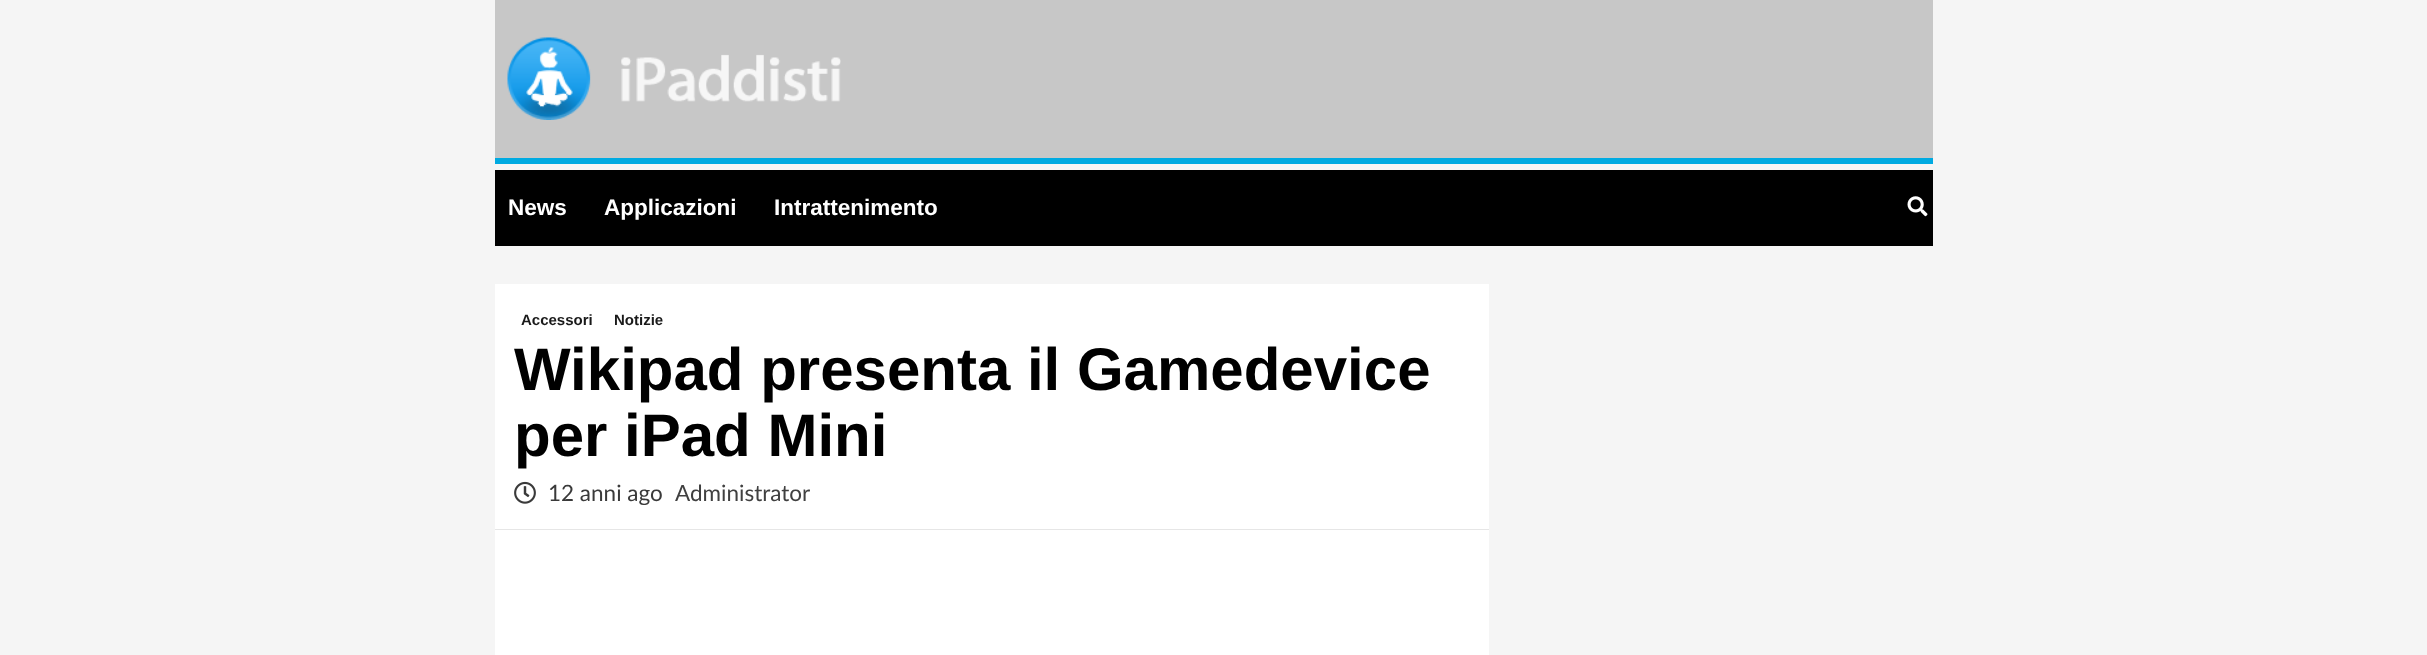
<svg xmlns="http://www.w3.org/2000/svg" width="2427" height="655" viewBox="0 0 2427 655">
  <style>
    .t1 { font: bold 22.5px Liberation Sans; fill: #fff; }
    .t2 { font: bold 15px Liberation Sans; fill: #1a1a1a; }
    .t3 { font: bold 60px Liberation Sans; fill: #000; }
    .t4 { font: 22.5px Lato; fill: #3a3a3a; }
    .t5 { font: 22.5px Lato; fill: #404040; }
  </style>
  <rect width="100%" height="100%" fill="#f5f5f5"/>
  <rect x="495" y="0" width="1438" height="158" fill="#c7c7c7"/>
  <rect x="495" y="158" width="1438" height="6" fill="#00aae1"/>
  <image x="507" y="37" width="334" height="83" href="images/1.png"/>
  <rect x="495" y="170" width="1438" height="76" fill="#000"/>
  <text x="508" y="215" class="t1">News</text>
  <text x="604" y="215" class="t1">Applicazioni</text>
  <text x="774" y="215" class="t1">Intrattenimento</text>
  <image x="1907" y="196" width="21" height="21" href="images/2.png"/>
  <rect x="495" y="284" width="994" height="371" fill="#fff"/>
  <rect x="495" y="529" width="994" height="1" fill="#e6e6e6"/>
  <text x="521" y="325" class="t2">Accessori</text>
  <text x="614" y="325" class="t2">Notizie</text>
  <text x="514" y="390" class="t3">Wikipad presenta il Gamedevice</text>
  <text x="514" y="456" class="t3">per iPad Mini</text>
  <image x="514" y="481" width="22" height="23" href="images/3.png"/>
  <text x="548" y="501" class="t4">12 anni ago</text>
  <text x="675" y="501" class="t5">Administrator</text>
</svg>
